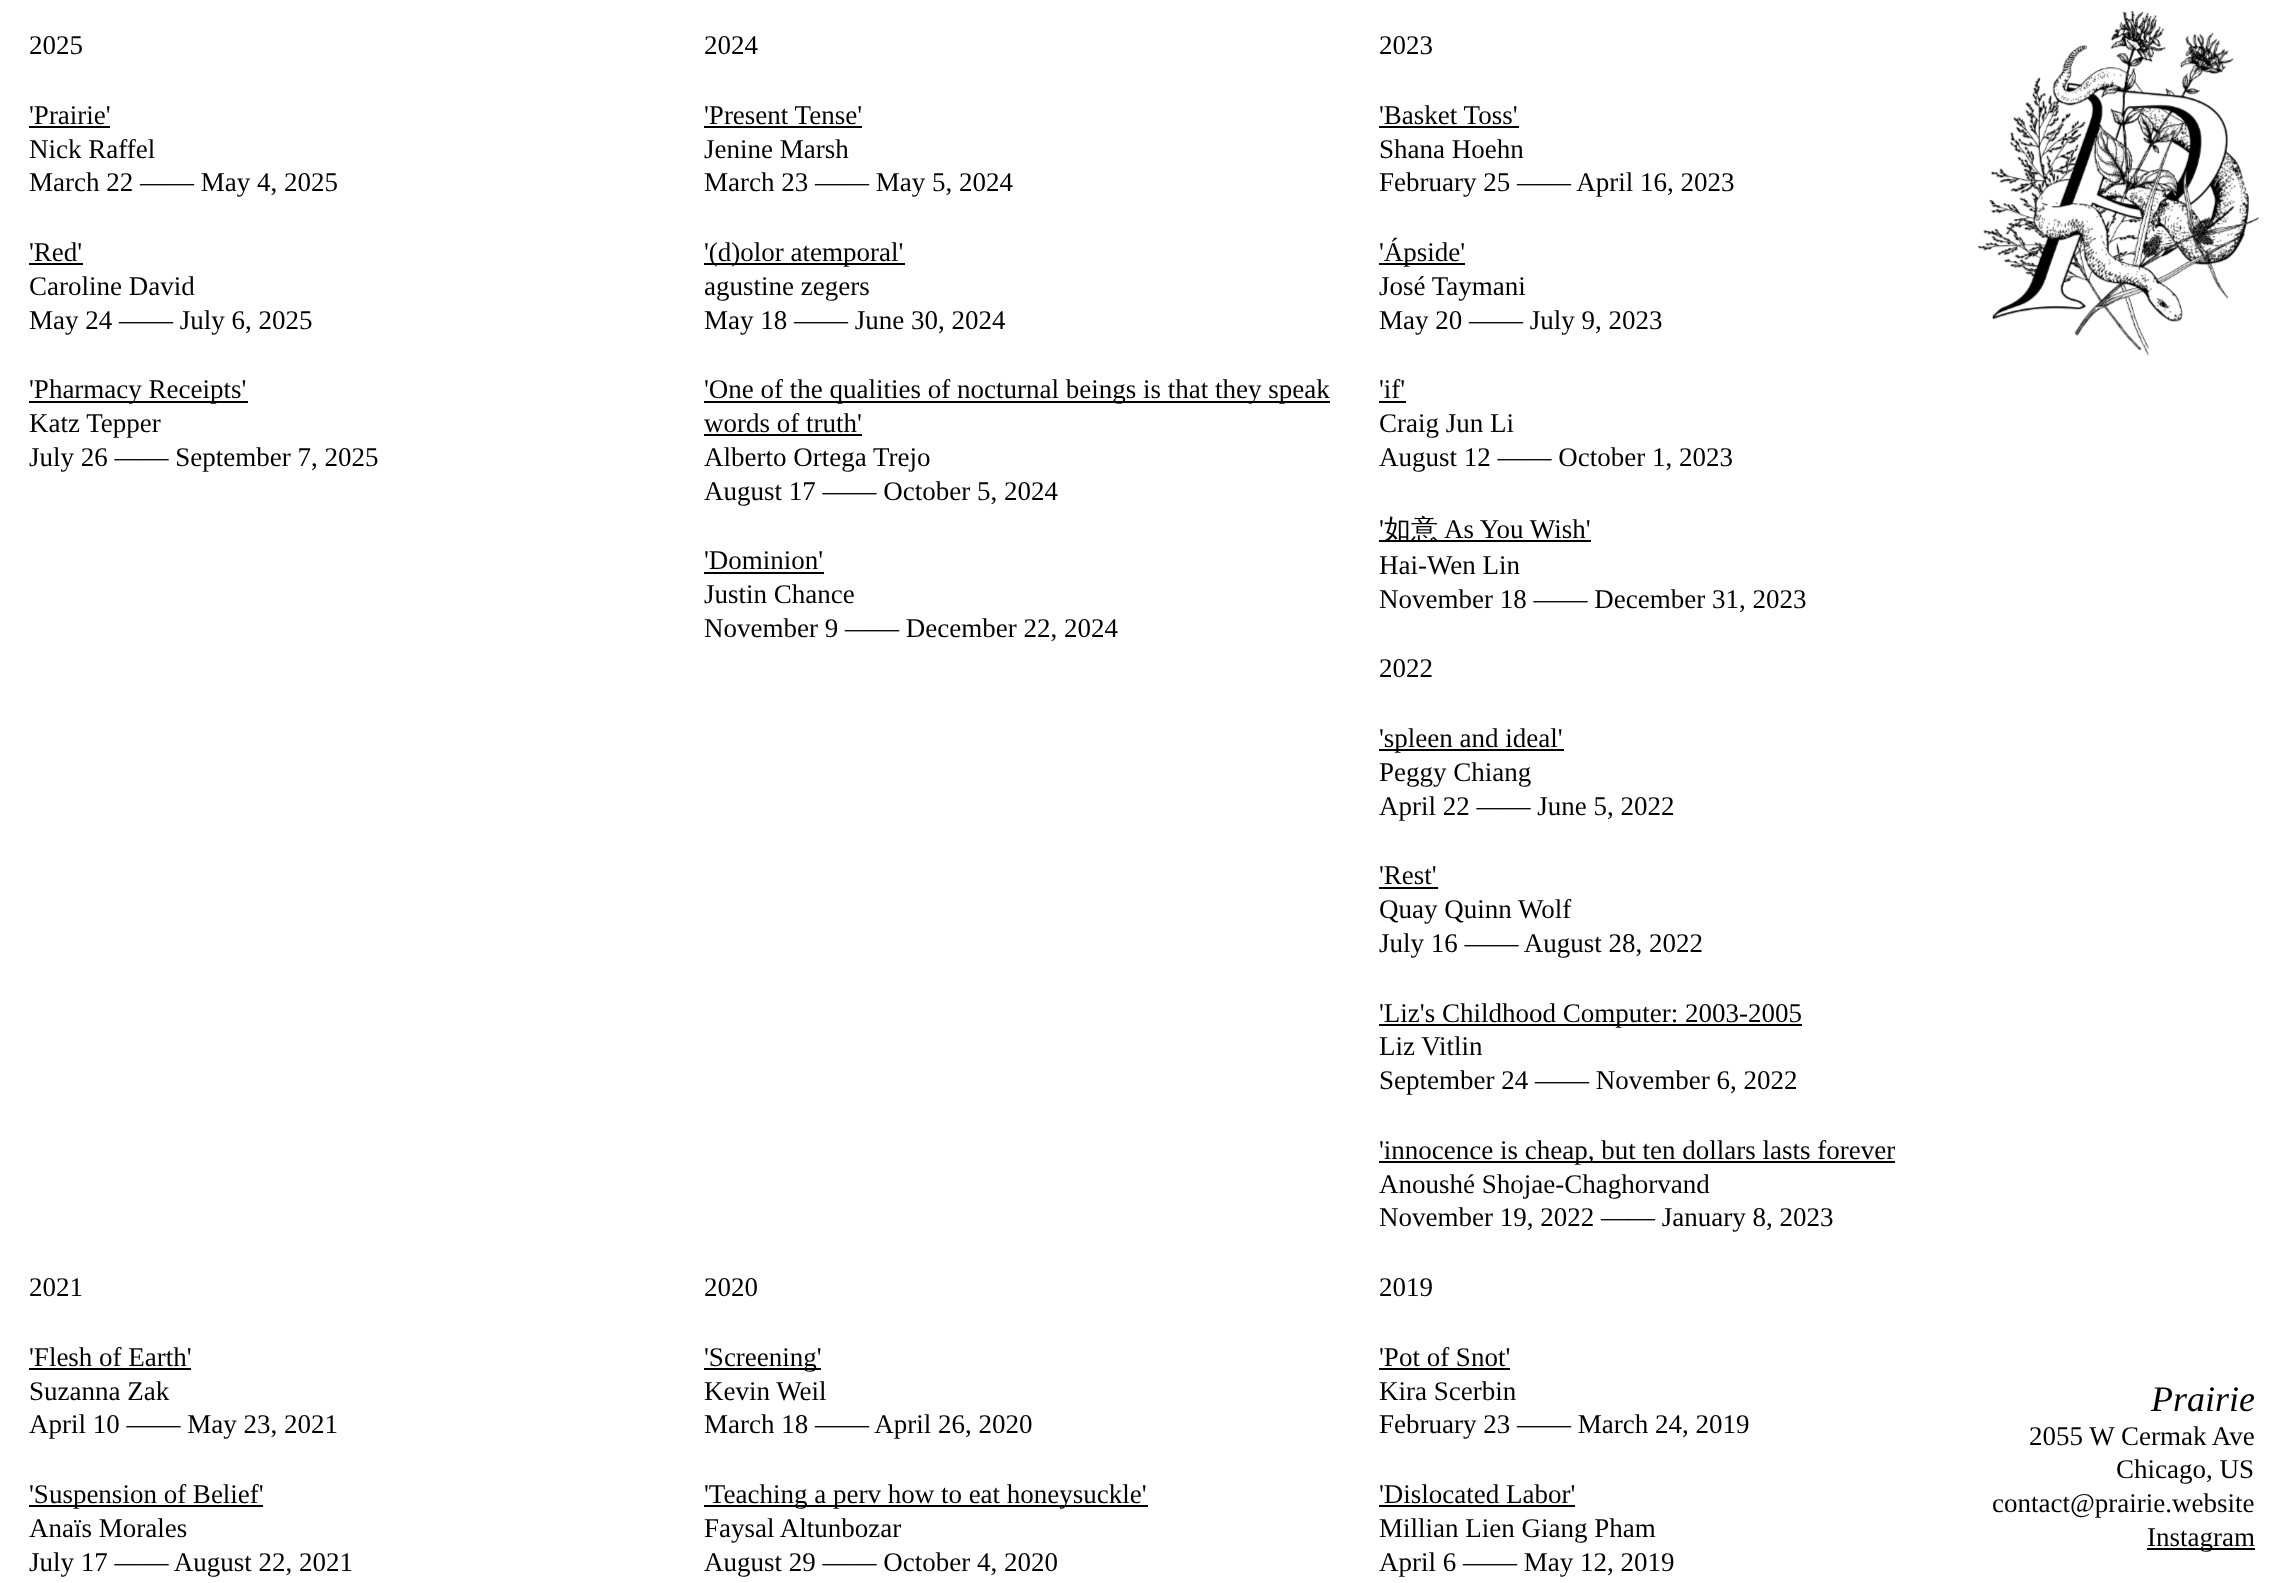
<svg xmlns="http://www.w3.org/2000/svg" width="2269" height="1583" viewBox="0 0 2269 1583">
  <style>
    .t1 { font: 27px Liberation Serif; fill: #000; }
    .t2 { font: 500 27px WenQuanYi Zen Hei; fill: #000; }
    .t3 { font: italic 36px Liberation Serif; fill: #000; }
  </style>
  <rect width="100%" height="100%" fill="#fff"/>
  <image x="1977" y="11" width="283" height="345" href="images/1.png"/>
  <text x="29" y="54" class="t1">2025</text>
  <text x="29" y="124" class="t1">'Prairie'</text>
  <rect x="29" y="126" width="81" height="2" fill="#000"/>
  <text x="29" y="158" class="t1">Nick Raffel</text>
  <text x="29" y="191" class="t1">March 22 —— May 4, 2025</text>
  <text x="29" y="261" class="t1">'Red'</text>
  <rect x="29" y="263" width="54" height="2" fill="#000"/>
  <text x="29" y="295" class="t1">Caroline David</text>
  <text x="29" y="329" class="t1">May 24 —— July 6, 2025</text>
  <rect x="29" y="401" width="219" height="2" fill="#000"/>
  <text x="29" y="398" class="t1">'Pharmacy Receipts'</text>
  <text x="29" y="432" class="t1">Katz Tepper</text>
  <text x="29" y="466" class="t1">July 26 —— September 7, 2025</text>
  <text x="704" y="54" class="t1">2024</text>
  <text x="704" y="124" class="t1">'Present Tense'</text>
  <rect x="704" y="126" width="158" height="2" fill="#000"/>
  <text x="704" y="158" class="t1">Jenine Marsh</text>
  <text x="704" y="191" class="t1">March 23 —— May 5, 2024</text>
  <rect x="704" y="263" width="201" height="2" fill="#000"/>
  <text x="704" y="261" class="t1">'(d)olor atemporal'</text>
  <text x="704" y="295" class="t1">agustine zegers</text>
  <text x="704" y="329" class="t1">May 18 —— June 30, 2024</text>
  <rect x="704" y="401" width="626" height="2" fill="#000"/>
  <text x="704" y="398" class="t1">'One of the qualities of nocturnal beings is that they speak</text>
  <text x="704" y="432" class="t1">words of truth'</text>
  <rect x="704" y="434" width="158" height="2" fill="#000"/>
  <text x="704" y="466" class="t1">Alberto Ortega Trejo</text>
  <text x="704" y="500" class="t1">August 17 —— October 5, 2024</text>
  <text x="704" y="569" class="t1">'Dominion'</text>
  <rect x="704" y="572" width="120" height="2" fill="#000"/>
  <text x="704" y="603" class="t1">Justin Chance</text>
  <text x="704" y="637" class="t1">November 9 —— December 22, 2024</text>
  <text x="1379" y="54" class="t1">2023</text>
  <text x="1379" y="124" class="t1">'Basket Toss'</text>
  <rect x="1379" y="126" width="140" height="2" fill="#000"/>
  <text x="1379" y="158" class="t1">Shana Hoehn</text>
  <text x="1379" y="191" class="t1">February 25 —— April 16, 2023</text>
  <rect x="1379" y="263" width="86" height="2" fill="#000"/>
  <text x="1379" y="261" class="t1">'Ápside'</text>
  <text x="1379" y="295" class="t1">José Taymani</text>
  <text x="1379" y="329" class="t1">May 20 —— July 9, 2023</text>
  <text x="1379" y="398" class="t1">'if'</text>
  <rect x="1379" y="401" width="27" height="2" fill="#000"/>
  <text x="1379" y="432" class="t1">Craig Jun Li</text>
  <text x="1379" y="466" class="t1">August 12 —— October 1, 2023</text>
  <text x="1379" y="538" class="t1">'</text>
  <rect x="1379" y="540" width="212" height="2" fill="#000"/>
  <text x="1384" y="538" class="t2">如意</text>
  <text x="1444" y="538" class="t1">As You Wish'</text>
  <text x="1379" y="574" class="t1">Hai-Wen Lin</text>
  <text x="1379" y="608" class="t1">November 18 —— December 31, 2023</text>
  <text x="1379" y="677" class="t1">2022</text>
  <rect x="1379" y="749" width="185" height="2" fill="#000"/>
  <text x="1379" y="747" class="t1">'spleen and ideal'</text>
  <text x="1379" y="781" class="t1">Peggy Chiang</text>
  <text x="1379" y="815" class="t1">April 22 —— June 5, 2022</text>
  <text x="1379" y="884" class="t1">'Rest'</text>
  <rect x="1379" y="887" width="59" height="2" fill="#000"/>
  <text x="1379" y="918" class="t1">Quay Quinn Wolf</text>
  <text x="1379" y="952" class="t1">July 16 —— August 28, 2022</text>
  <rect x="1379" y="1024" width="423" height="2" fill="#000"/>
  <text x="1379" y="1022" class="t1">'Liz's Childhood Computer: 2003-2005</text>
  <text x="1379" y="1055" class="t1">Liz Vitlin</text>
  <text x="1379" y="1089" class="t1">September 24 —— November 6, 2022</text>
  <rect x="1379" y="1161" width="516" height="2" fill="#000"/>
  <text x="1379" y="1159" class="t1">'innocence is cheap, but ten dollars lasts forever</text>
  <text x="1379" y="1193" class="t1">Anoushé Shojae-Chaghorvand</text>
  <text x="1379" y="1226" class="t1">November 19, 2022 —— January 8, 2023</text>
  <text x="29" y="1296" class="t1">2021</text>
  <text x="29" y="1366" class="t1">'Flesh of Earth'</text>
  <rect x="29" y="1368" width="162" height="2" fill="#000"/>
  <text x="29" y="1400" class="t1">Suzanna Zak</text>
  <text x="29" y="1433" class="t1">April 10 —— May 23, 2021</text>
  <rect x="29" y="1505" width="234" height="2" fill="#000"/>
  <text x="29" y="1503" class="t1">'Suspension of Belief'</text>
  <text x="29" y="1537" class="t1">Anaïs Morales</text>
  <text x="29" y="1571" class="t1">July 17 —— August 22, 2021</text>
  <text x="704" y="1296" class="t1">2020</text>
  <rect x="704" y="1368" width="117" height="2" fill="#000"/>
  <text x="704" y="1366" class="t1">'Screening'</text>
  <text x="704" y="1400" class="t1">Kevin Weil</text>
  <text x="704" y="1433" class="t1">March 18 —— April 26, 2020</text>
  <rect x="704" y="1505" width="444" height="2" fill="#000"/>
  <text x="704" y="1503" class="t1">'Teaching a perv how to eat honeysuckle'</text>
  <text x="704" y="1537" class="t1">Faysal Altunbozar</text>
  <text x="704" y="1571" class="t1">August 29 —— October 4, 2020</text>
  <text x="1379" y="1296" class="t1">2019</text>
  <text x="1379" y="1366" class="t1">'Pot of Snot'</text>
  <rect x="1379" y="1368" width="131" height="2" fill="#000"/>
  <text x="1379" y="1400" class="t1">Kira Scerbin</text>
  <text x="1379" y="1433" class="t1">February 23 —— March 24, 2019</text>
  <text x="1379" y="1503" class="t1">'Dislocated Labor'</text>
  <rect x="1379" y="1505" width="196" height="2" fill="#000"/>
  <text x="1379" y="1537" class="t1">Millian Lien Giang Pham</text>
  <text x="1379" y="1571" class="t1">April 6 —— May 12, 2019</text>
  <text x="2151" y="1411" class="t3">Prairie</text>
  <text x="2029" y="1445" class="t1">2055 W Cermak Ave</text>
  <text x="2116" y="1478" class="t1">Chicago, US</text>
  <text x="1992" y="1512" class="t1">contact@prairie.website</text>
  <rect x="2147" y="1548" width="108" height="2" fill="#000"/>
  <text x="2147" y="1546" class="t1">Instagram</text>
</svg>
